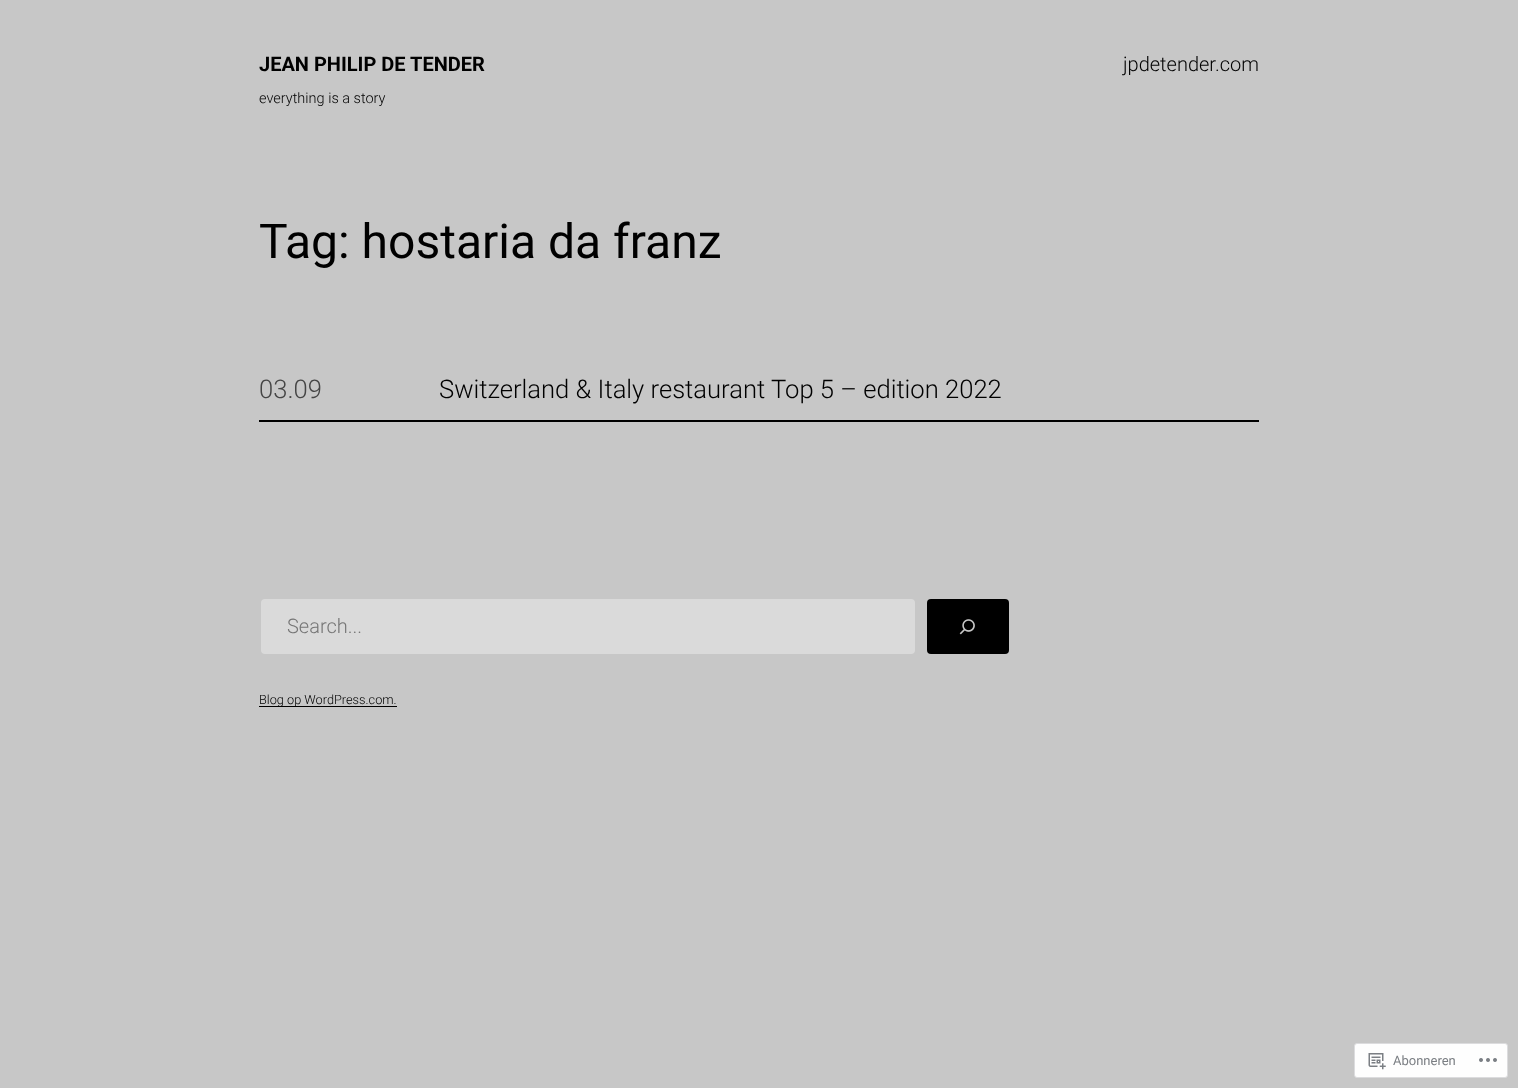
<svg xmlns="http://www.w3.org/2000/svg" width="1518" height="1088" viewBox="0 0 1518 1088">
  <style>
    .t1 { font: bold 20px Roboto; fill: #000; }
    .t2 { font: 300 20px Roboto; fill: #000; }
    .t3 { font: 300 14.5px Roboto; fill: #000; }
    .t4 { font: 48px Roboto; fill: #000; }
    .t5 { font: 300 25.6px Roboto; fill: #454545; }
    .t6 { font: 300 25.6px Roboto; fill: #000; }
    .t7 { font: 300 20px Roboto; fill: #757575; }
    .t8 { font: 300 12.75px Roboto; fill: #000; }
    .t9 { font: 13px Roboto; fill: #7a7e83; }
  </style>
  <rect width="100%" height="100%" fill="#c7c7c7"/>
  <text x="259" y="71" class="t1">JEAN PHILIP DE TENDER</text>
  <text x="1123" y="71" class="t2">jpdetender.com</text>
  <text x="259" y="103" class="t3">everything is a story</text>
  <text x="259" y="258" class="t4">Tag: hostaria da franz</text>
  <rect x="259" y="420" width="1000" height="2" fill="#000"/>
  <text x="259" y="398" class="t5">03.09</text>
  <text x="439" y="398" class="t6">Switzerland &amp; Italy restaurant Top 5 – edition 2022</text>
  <rect x="261" y="599" width="654" height="55" rx="4" fill="#dadada"/>
  <text x="287" y="633" class="t7">Search...</text>
  <rect x="927" y="599" width="82" height="55" rx="4" fill="#000"/>
  <image x="959" y="619" width="16" height="16" href="images/1.png"/>
  <rect x="259" y="706" width="138" height="1" fill="#000"/>
  <text x="259" y="704" class="t8">Blog op WordPress.com.</text>
  <rect x="1354.5" y="1043.5" width="153" height="34" rx="2.5" fill="#fefefe" stroke="#dcdcde"/>
  <image x="1368" y="1053" width="18" height="17" href="images/2.png"/>
  <text x="1393" y="1065" class="t9">Abonneren</text>
  <image x="1479" y="1058" width="18" height="4" href="images/3.png"/>
</svg>
